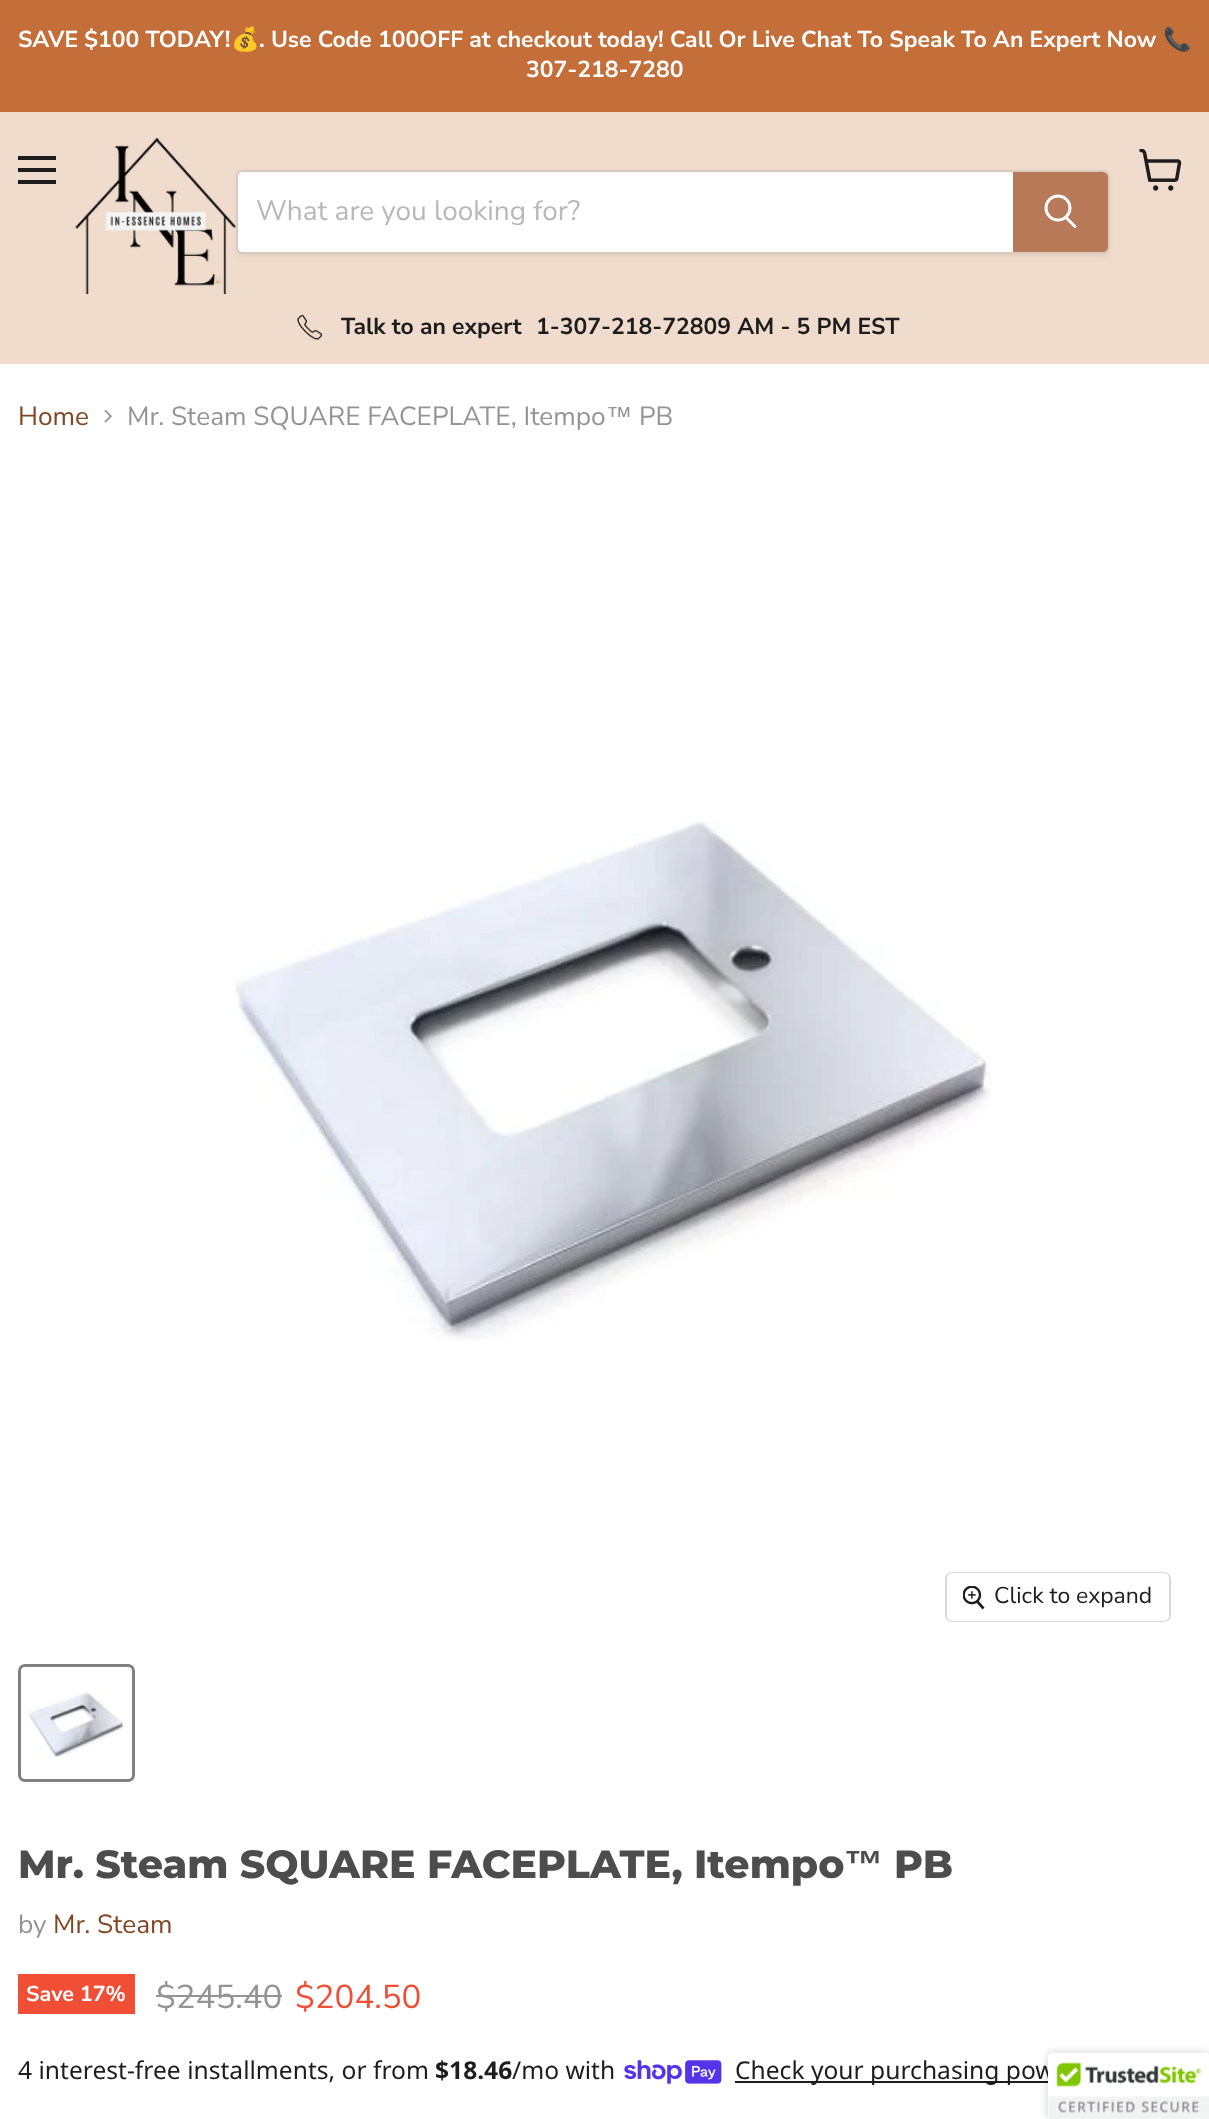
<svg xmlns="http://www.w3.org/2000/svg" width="1209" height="2119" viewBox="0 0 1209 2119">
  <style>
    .t1 { font: bold 22.95px Nunito Sans; fill: #fff; }
    .t2 { font: bold 22.95px Noto Color Emoji; fill: #fff; }
    .t3 { font: 28px Nunito Sans; fill: #b8b8b8; }
    .t4 { font: bold 22.95px Nunito Sans; fill: #1d1d1d; }
    .t5 { font: 26.25px Nunito Sans; fill: #814723; }
    .t6 { font: 26.25px Nunito Sans; fill: #949494; }
    .t7 { font: 26.25px Liberation Sans; fill: #949494; }
    .t8 { font: 22.95px Nunito Sans; fill: #1d1d1d; }
    .t9 { font: 800 39.4px Montserrat; fill: #4d4d4d; }
    .t10 { font: bold 39.4px Liberation Sans; fill: #4d4d4d; }
    .t11 { font: bold 21.5px Nunito Sans; fill: #fff; }
    .t12 { font: 33px Nunito Sans; fill: #949494; }
    .t13 { font: 33px Nunito Sans; fill: #f04f36; }
    .t14 { font: 24.6px Noto Sans; fill: #1d1d1d; }
    .t15 { font: bold 24.6px Noto Sans; fill: #1d1d1d; }
  </style>
  <defs>
    <clipPath id="clip1"><path d="M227 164H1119V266H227ZM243 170H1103C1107 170 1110 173 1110 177V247C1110 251 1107 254 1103 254H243C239 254 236 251 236 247V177C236 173 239 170 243 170Z" clip-rule="evenodd"/></clipPath>
  </defs>
  <rect width="100%" height="100%" fill="#fff"/>
  <rect x="0" y="0" width="1209" height="112" fill="#c46e39"/>
  <text x="18" y="47" class="t1">SAVE $100 TODAY!</text>
  <text x="231" y="47" class="t2">💰</text>
  <text x="259" y="47" class="t1">. Use Code 100OFF at checkout today! Call Or Live Chat To Speak To An Expert Now</text>
  <text x="1163" y="47" class="t2">📞</text>
  <text x="526" y="77" class="t1">307-218-7280</text>
  <rect x="0" y="112" width="1209" height="252" fill="#efdccc"/>
  <rect x="18" y="156" width="38" height="4" fill="#1d1d1d"/>
  <rect x="18" y="168" width="38" height="4" fill="#1d1d1d"/>
  <rect x="18" y="180" width="38" height="4" fill="#1d1d1d"/>
  <image x="1139" y="149" width="43" height="42" href="images/1.png"/>
  <image x="75" y="137" width="161" height="158" href="images/2.png"/>
  <g clip-path="url(#clip1)">
    <rect x="236" y="173" width="874" height="84" rx="7" fill="#8080801c" filter="blur(2.5px)"/>
  </g>
  <rect x="237" y="171" width="872" height="82" rx="6" fill="none" stroke="#80808033" stroke-width="2"/>
  <path d="M243 172H1013V252H243C240 252 238 250 238 247V177C238 174 240 172 243 172Z" fill="#fff"/>
  <text x="256" y="220" class="t3">What are you looking for?</text>
  <path d="M1014 173H1103C1105 173 1107 175 1107 177V247C1107 249 1105 251 1103 251H1014Z" fill="#b77957" stroke="#b77957" stroke-width="2"/>
  <path d="M1075 226.5L1066.5 218" fill="none" stroke="#fff" stroke-width="3" stroke-linecap="round"/>
  <circle cx="1058" cy="208" r="12" fill="none" stroke="#fff" stroke-width="3"/>
  <image x="297" y="314" width="25" height="27" href="images/3.png"/>
  <text x="341" y="334" class="t4">Talk to an expert</text>
  <text x="536" y="334" class="t4">1-307-218-72809 AM - 5 PM EST</text>
  <text x="18" y="425" class="t5">Home</text>
  <image x="104" y="410" width="8" height="13" href="images/4.png"/>
  <text x="127" y="425" class="t6">Mr. Steam SQUARE FACEPLATE, Itempo</text>
  <text x="606" y="425" class="t7">™</text>
  <text x="639" y="425" class="t6">PB</text>
  <image x="234" y="820" width="757" height="520" href="images/5.png"/>
  <rect x="946" y="1573" width="224" height="48" rx="6" fill="none" stroke="#d9d9d9" stroke-width="2"/>
  <rect x="947" y="1573" width="222" height="48" rx="5" fill="#ffffffe6"/>
  <image x="963" y="1586" width="22" height="24" href="images/6.png"/>
  <text x="994" y="1603" class="t8">Click to expand</text>
  <rect x="19.5" y="1665.5" width="114" height="115" rx="5.5" fill="none" stroke="#818181" stroke-width="3"/>
  <image x="28" y="1692" width="96" height="67" href="images/7.png"/>
  <text x="18" y="1878" class="t9">Mr. Steam SQUARE FACEPLATE, Itempo</text>
  <text x="844" y="1878" class="t10">™</text>
  <text x="894" y="1878" class="t9">PB</text>
  <text x="18" y="1933" class="t6">by</text>
  <text x="53" y="1933" class="t5">Mr. Steam</text>
  <rect x="18" y="1974" width="117" height="40" fill="#f04f36"/>
  <text x="26" y="2001" class="t11">Save 17%</text>
  <text x="156" y="2008" class="t12">$245.40</text>
  <rect x="156" y="1995" width="126" height="2" fill="#949494"/>
  <text x="295" y="2008" class="t13">$204.50</text>
  <text x="18" y="2079" class="t14">4 interest-free installments, or from</text>
  <text x="435" y="2079" class="t15">$18.46</text>
  <text x="512" y="2079" class="t14">/mo with</text>
  <image x="624" y="2060" width="98" height="24" href="images/8.png"/>
  <rect x="735" y="2081" width="313" height="2" fill="#1d1d1d"/>
  <text x="735" y="2079" class="t14">Check your purchasing pow</text>
  <rect x="1048" y="2053" width="161" height="66" rx="4" fill="#00000033" filter="blur(4.5px)"/>
  <path d="M1052 2053H1209V2119H1048V2057C1048 2055 1050 2053 1052 2053Z" fill="#fff"/>
  <image x="1048" y="2052" width="161" height="67" href="images/9.png"/>
</svg>
